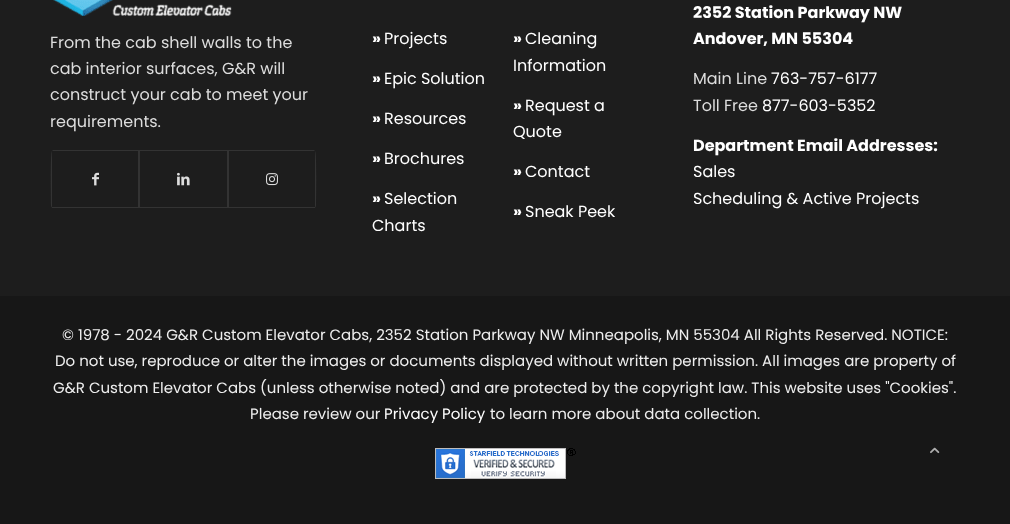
<svg xmlns="http://www.w3.org/2000/svg" width="1010" height="524" viewBox="0 0 1010 524">
  <style>
    .t1 { font: 16px Poppins; fill: #ddd; }
    .t2 { font: bold 16px Poppins; fill: #fff; }
    .t3 { font: 16px Poppins; fill: #fff; }
    .t4 { font: 15px Poppins; fill: #eee; }
    .t5 { font: 15px Poppins; fill: #fff; }
  </style>
  <rect width="100%" height="100%" fill="#1d1d1d"/>
  <image x="53" y="0" width="179" height="16" href="images/1.png"/>
  <text x="50" y="48" class="t1">From the cab shell walls to the</text>
  <text x="50" y="74" class="t1">cab interior surfaces, G&amp;R will</text>
  <text x="50" y="100" class="t1">construct your cab to meet your</text>
  <text x="50" y="127" class="t1">requirements.</text>
  <path d="M53 150L52 151C50 152 51 200 51 206L52 208H139V150ZM52 151V207H138V151Z" fill="#333" fill-rule="evenodd"/>
  <image x="92" y="172" width="7" height="14" href="images/2.png"/>
  <rect x="139.5" y="150.5" width="88" height="57" fill="none" stroke="#333"/>
  <image x="177" y="172" width="13" height="14" href="images/3.png"/>
  <path d="M228 150V208H315L316 206C316 200 317 152 315 151L314 150ZM229 151V207H315V151Z" fill="#333" fill-rule="evenodd"/>
  <image x="266" y="173" width="12" height="13" href="images/4.png"/>
  <text x="372" y="44" class="t2">»</text>
  <text x="384" y="44" class="t3">Projects</text>
  <text x="513" y="44" class="t2">»</text>
  <text x="525" y="44" class="t3">Cleaning</text>
  <text x="513" y="71" class="t3">Information</text>
  <text x="372" y="84" class="t2">»</text>
  <text x="384" y="84" class="t3">Epic Solution</text>
  <text x="372" y="124" class="t2">»</text>
  <text x="384" y="124" class="t3">Resources</text>
  <text x="513" y="111" class="t2">»</text>
  <text x="525" y="111" class="t3">Request a</text>
  <text x="513" y="137" class="t3">Quote</text>
  <text x="372" y="164" class="t2">»</text>
  <text x="384" y="164" class="t3">Brochures</text>
  <text x="513" y="177" class="t2">»</text>
  <text x="525" y="177" class="t3">Contact</text>
  <text x="372" y="204" class="t2">»</text>
  <text x="384" y="204" class="t3">Selection</text>
  <text x="372" y="231" class="t3">Charts</text>
  <text x="513" y="217" class="t2">»</text>
  <text x="525" y="217" class="t3">Sneak Peek</text>
  <text x="693" y="18" class="t2">2352 Station Parkway NW</text>
  <text x="693" y="44" class="t2">Andover, MN 55304</text>
  <text x="693" y="84" class="t1">Main Line</text>
  <text x="771" y="84" class="t3">763-757-6177</text>
  <text x="693" y="111" class="t1">Toll Free</text>
  <text x="762" y="111" class="t3">877-603-5352</text>
  <text x="693" y="151" class="t2">Department Email Addresses:</text>
  <text x="693" y="177" class="t3">Sales</text>
  <text x="693" y="204" class="t3">Scheduling &amp; Active Projects</text>
  <rect x="0" y="296" width="1010" height="228" fill="#171717"/>
  <text x="62" y="340" class="t4">© 1978 - 2024 G&amp;R Custom Elevator Cabs, 2352 Station Parkway NW Minneapolis, MN 55304 All Rights Reserved. NOTICE:</text>
  <text x="55" y="366" class="t4">Do not use, reproduce or alter the images or documents displayed without written permission. All images are property of</text>
  <text x="53" y="393" class="t4">G&amp;R Custom Elevator Cabs (unless otherwise noted) and are protected by the copyright law. This website uses "Cookies".</text>
  <text x="250" y="419" class="t4">Please review our</text>
  <text x="384" y="419" class="t5">Privacy Policy</text>
  <text x="490" y="419" class="t4">to learn more about data collection.</text>
  <image x="435" y="448" width="141" height="31" href="images/5.png"/>
  <image x="930" y="447" width="10" height="7" href="images/6.png"/>
</svg>
